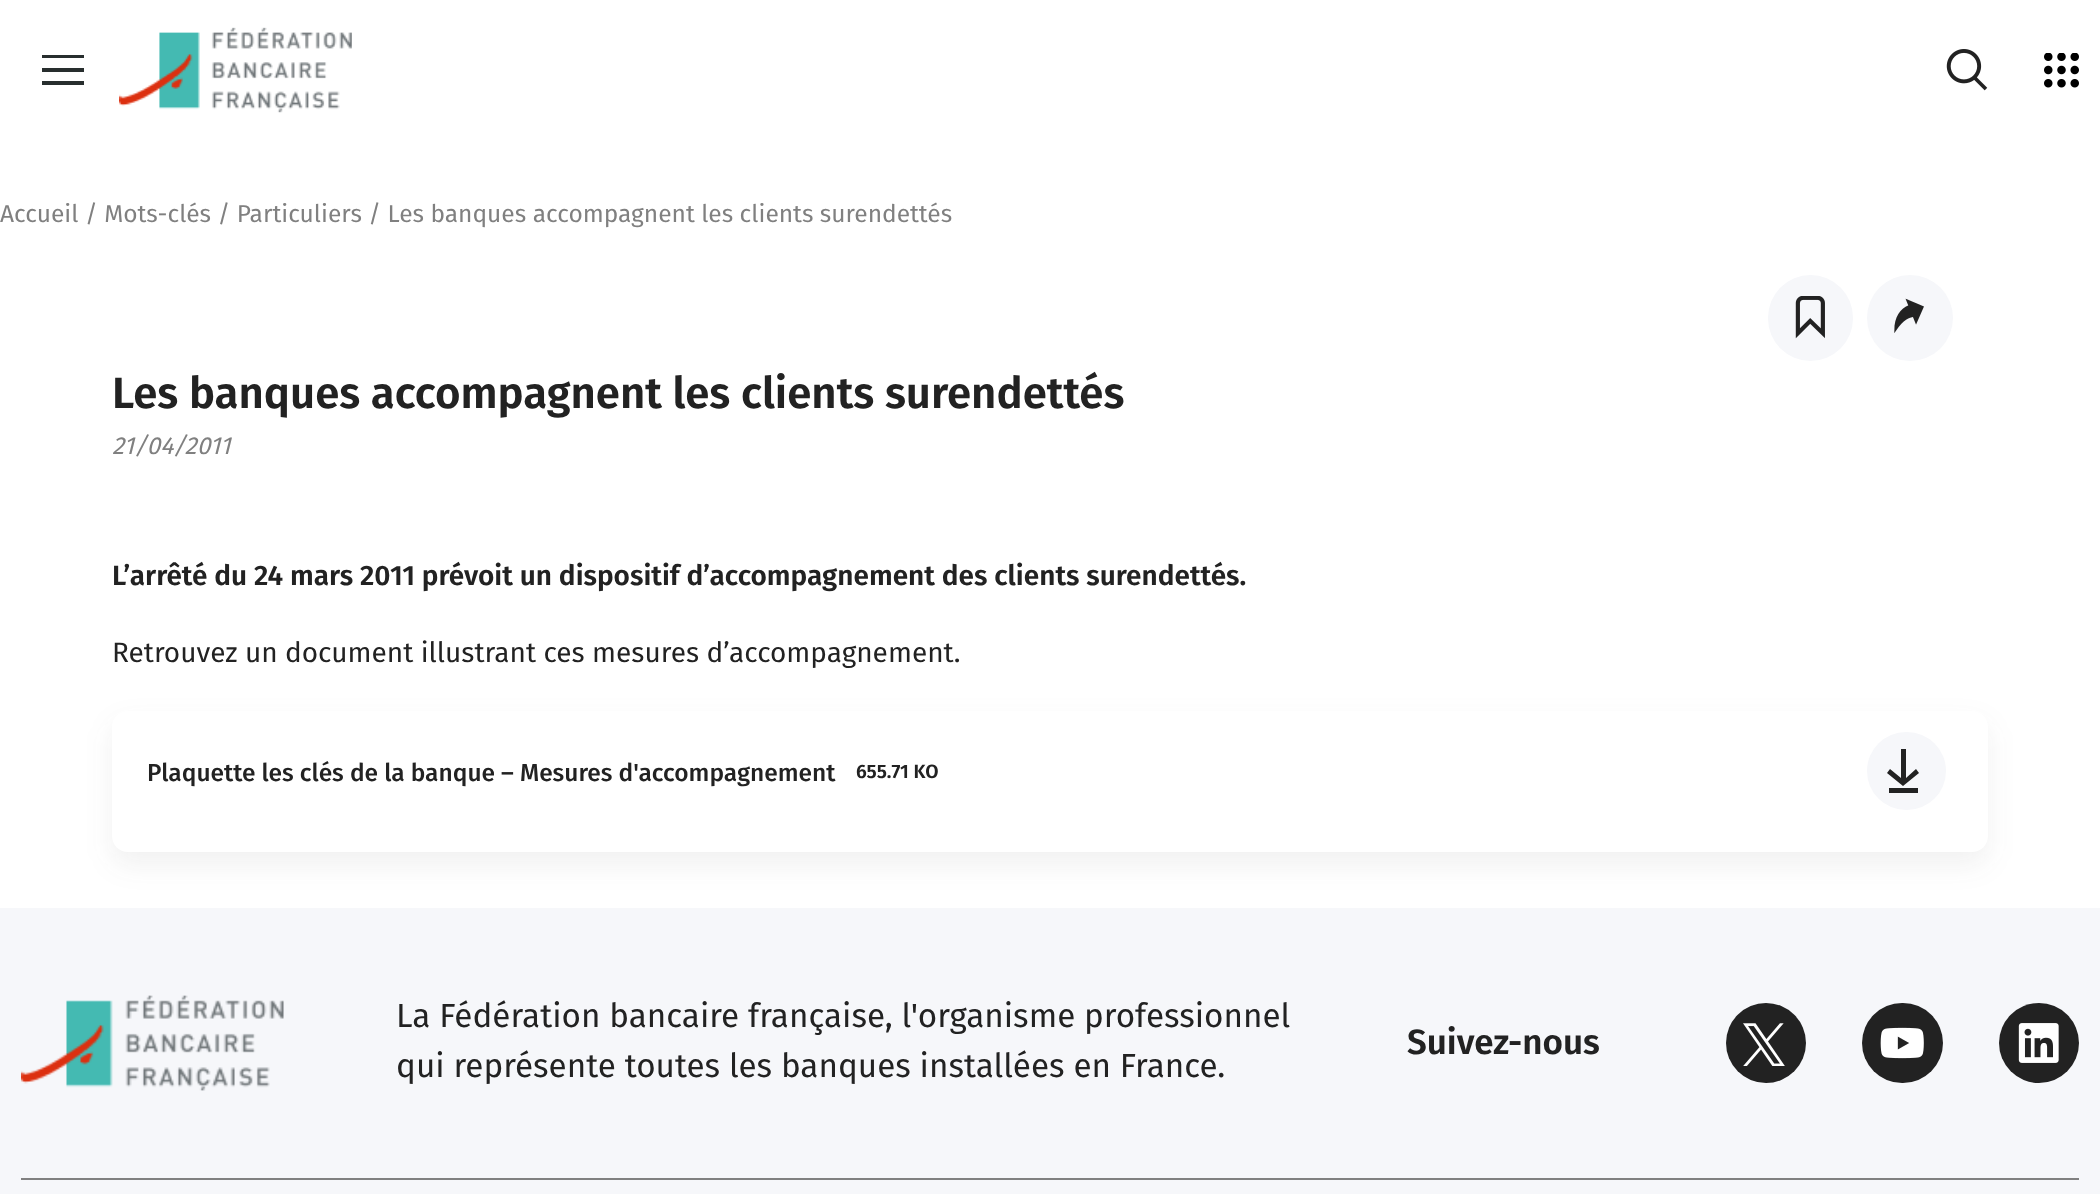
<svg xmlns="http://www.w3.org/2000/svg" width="2100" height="1194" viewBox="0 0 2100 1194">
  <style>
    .t1 { font: 24.5px Fira Sans; fill: #808080; }
    .t2 { font: 600 43.75px Fira Sans; fill: #222; }
    .t3 { font: italic 24.5px Fira Sans; fill: #808080; }
    .t4 { font: 600 28px Fira Sans; fill: #222; }
    .t5 { font: 28px Fira Sans; fill: #222; }
    .t6 { font: 500 24.5px Fira Sans; fill: #222; }
    .t7 { font: 600 19.25px Fira Sans; fill: #222; }
    .t8 { font: 33.25px Fira Sans; fill: #222; }
    .t9 { font: 600 35px Fira Sans; fill: #222; }
  </style>
  <defs>
    <clipPath id="clip1"><path d="M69 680H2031V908H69ZM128 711H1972C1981 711 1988 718 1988 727V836C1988 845 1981 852 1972 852H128C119 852 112 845 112 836V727C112 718 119 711 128 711Z" clip-rule="evenodd"/></clipPath>
  </defs>
  <rect width="100%" height="100%" fill="#fff"/>
  <path d="M84 81V85H42V81ZM84 68V72H42V68ZM84 55V58H42V55Z" fill="#282e2e" fill-rule="evenodd"/>
  <image x="119" y="27" width="233" height="86" href="images/1.png"/>
  <image x="1946" y="49" width="42" height="42" href="images/2.png"/>
  <image x="2044" y="53" width="35" height="35" href="images/3.png"/>
  <text x="0" y="222" class="t1">Accueil / Mots-clés / Particuliers / Les banques accompagnent les clients surendettés</text>
  <rect x="1768" y="275" width="85" height="86" rx="42.5" fill="#f6f7fa"/>
  <image x="1795" y="296" width="30" height="43" href="images/4.png"/>
  <circle cx="1910" cy="318" r="43" fill="#f6f7fa"/>
  <image x="1894" y="298" width="30" height="35" href="images/5.png"/>
  <text x="112" y="408" class="t2">Les banques accompagnent les clients surendettés</text>
  <text x="112" y="454" class="t3">21/04/2011</text>
  <text x="112" y="585" class="t4">L’arrêté du 24 mars 2011 prévoit un dispositif d’accompagnement des clients surendettés.</text>
  <text x="112" y="662" class="t5">Retrouvez un document illustrant ces mesures d’accompagnement.</text>
  <g clip-path="url(#clip1)">
    <rect x="112" y="723" width="1876" height="142" rx="16" fill="#32323212" filter="blur(14px)"/>
  </g>
  <text x="147" y="781" class="t6">Plaquette les clés de la banque – Mesures d'accompagnement</text>
  <text x="856" y="778" class="t7">655.71 KO</text>
  <rect x="1867" y="732" width="79" height="78" rx="39" fill="#f6f7fa"/>
  <path d="M1918 788V793H1889V788ZM1906 749V778L1916 769L1919 773L1903 786L1887 773L1890 769L1901 778V749Z" fill="#222" fill-rule="evenodd"/>
  <rect x="0" y="908" width="2100" height="286" fill="#f6f7fa"/>
  <rect x="21" y="1178" width="2058" height="2" fill="#808080"/>
  <image x="21" y="995" width="263" height="96" href="images/6.png"/>
  <text x="396" y="1027" class="t8">La Fédération bancaire française, l'organisme professionnel</text>
  <text x="396" y="1077" class="t8">qui représente toutes les banques installées en France.</text>
  <text x="1407" y="1054" class="t9">Suivez-nous</text>
  <circle cx="1766" cy="1043" r="40" fill="#222"/>
  <image x="1743" y="1023" width="42" height="43" href="images/7.png"/>
  <rect x="1862" y="1003" width="81" height="80" rx="40" fill="#222"/>
  <image x="1880" y="1027" width="44" height="32" href="images/8.png"/>
  <circle cx="2039" cy="1043" r="40" fill="#222"/>
  <image x="2018" y="1023" width="41" height="40" href="images/9.png"/>
</svg>
